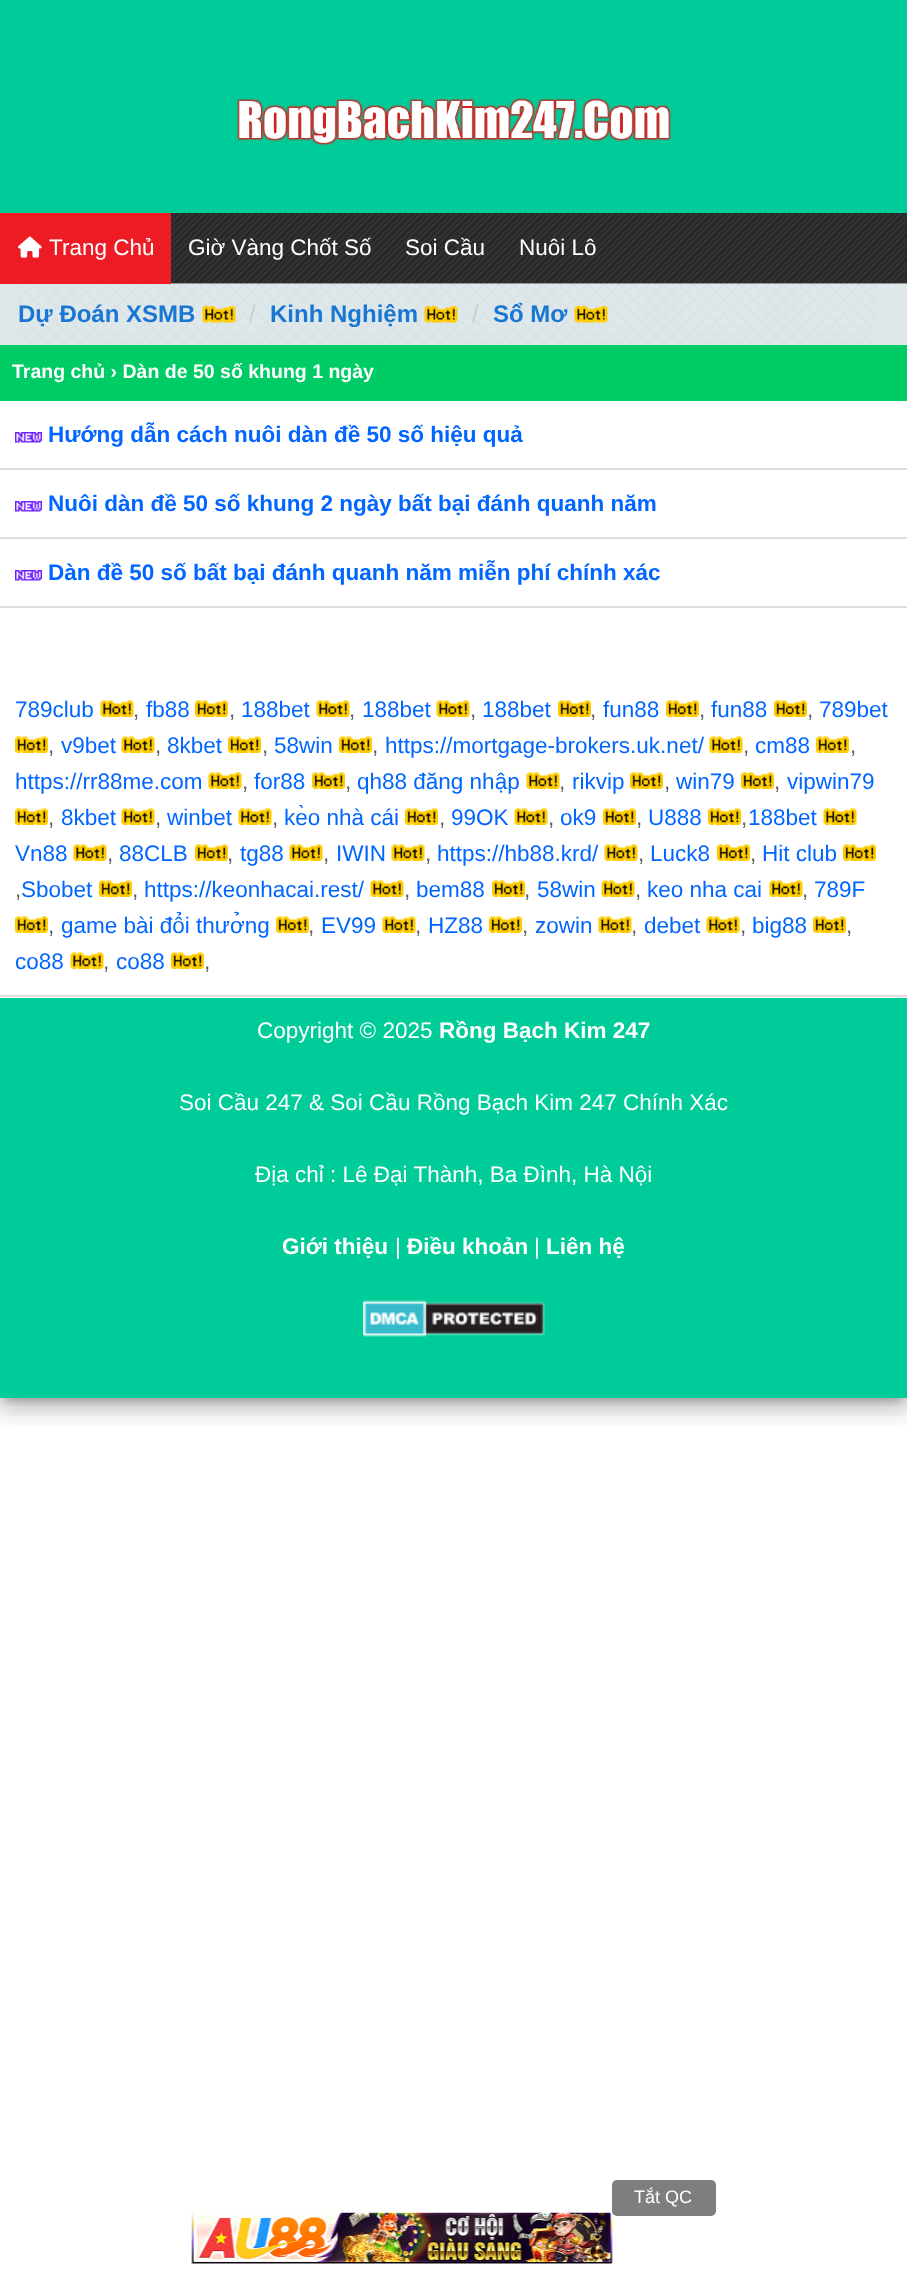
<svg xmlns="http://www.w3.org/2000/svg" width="907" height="2269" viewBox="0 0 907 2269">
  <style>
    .t1 { font: 22.5px Liberation Sans; fill: #fff; }
    .t2 { font: bold 24px Liberation Sans; fill: #1976d2; }
    .t3 { font: 24px Liberation Sans; fill: #ccc; }
    .t4 { font: bold 19.5px Liberation Sans; fill: #fff; }
    .t5 { font: bold 22.5px Liberation Sans; fill: #06f; }
    .t6 { font: 22.5px Liberation Sans; fill: #06f; }
    .t7 { font: 22.5px Liberation Sans; fill: #666; }
    .t8 { font: bold 22.5px Liberation Sans; fill: #fff; }
    .t9 { font: 18px Liberation Sans; fill: #fff; }
  </style>
  <defs>
    <clipPath id="clip1"><rect x="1" y="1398" width="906" height="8"/></clipPath>
    <clipPath id="clip2"><rect x="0" y="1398" width="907" height="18"/></clipPath>
    <clipPath id="clip3"><rect x="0" y="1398" width="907" height="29"/></clipPath>
  </defs>
  <rect width="100%" height="100%" fill="#fff"/>
  <g clip-path="url(#clip1)">
    <rect x="5" y="12" width="898" height="1389" fill="#00000033" filter="blur(4px)"/>
  </g>
  <g clip-path="url(#clip2)">
    <rect x="-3" y="2" width="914" height="1404" fill="#0000001f" filter="blur(10.5px)"/>
  </g>
  <g clip-path="url(#clip3)">
    <rect x="-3" y="9" width="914" height="1404" fill="#00000024" filter="blur(13px)"/>
  </g>
  <rect x="0" y="0" width="907" height="213" fill="#0c9"/>
  <image x="236" y="97" width="436" height="49" href="images/1.png"/>
  <image x="171" y="213" width="736" height="71" href="images/2.png"/>
  <rect x="0" y="213" width="171" height="71" fill="#ed1c24"/>
  <image x="18" y="236" width="24" height="22" href="images/3.png"/>
  <text x="49" y="255" class="t1">Trang Chủ</text>
  <text x="188" y="255" class="t1">Giờ Vàng Chốt Số</text>
  <text x="405" y="255" class="t1">Soi Cầu</text>
  <text x="519" y="255" class="t1">Nuôi Lô</text>
  <rect x="0" y="284" width="907" height="61" fill="#dee8eb"/>
  <image x="18" y="284" width="859" height="61" href="images/4.png"/>
  <text x="18" y="322" class="t2">Dự Đoán XSMB</text>
  <image x="202" y="306" width="34" height="17" href="images/5.png"/>
  <text x="249" y="322" class="t3">/</text>
  <text x="270" y="322" class="t2">Kinh Nghiệm</text>
  <image x="424" y="306" width="34" height="17" href="images/6.png"/>
  <text x="472" y="322" class="t3">/</text>
  <text x="493" y="322" class="t2">Sổ Mơ</text>
  <image x="574" y="306" width="34" height="17" href="images/6.png"/>
  <rect x="0" y="345" width="907" height="56" fill="#0c6"/>
  <text x="12" y="378" class="t4">Trang chủ › Dàn de 50 số khung 1 ngày</text>
  <rect x="0" y="468" width="907" height="2" fill="#ddd"/>
  <image x="15" y="432" width="27" height="11" href="images/7.png"/>
  <text x="48" y="442" class="t5">Hướng dẫn cách nuôi dàn đề 50 số hiệu quả</text>
  <rect x="0" y="537" width="907" height="2" fill="#ddd"/>
  <image x="15" y="501" width="27" height="11" href="images/7.png"/>
  <text x="48" y="511" class="t5">Nuôi dàn đề 50 số khung 2 ngày bất bại đánh quanh năm</text>
  <rect x="0" y="606" width="907" height="2" fill="#ddd"/>
  <image x="15" y="570" width="27" height="11" href="images/7.png"/>
  <text x="48" y="580" class="t5">Dàn đề 50 số bất bại đánh quanh năm miễn phí chính xác</text>
  <rect x="0" y="995" width="907" height="2" fill="#ddd"/>
  <text x="15" y="717" class="t6">789club</text>
  <image x="100" y="700" width="34" height="17" href="images/8.png"/>
  <text x="133" y="717" class="t7">,</text>
  <text x="146" y="717" class="t6">fb88</text>
  <image x="195" y="700" width="33" height="17" href="images/9.png"/>
  <text x="229" y="717" class="t7">,</text>
  <text x="241" y="717" class="t6">188bet</text>
  <image x="316" y="700" width="34" height="17" href="images/8.png"/>
  <text x="349" y="717" class="t7">,</text>
  <text x="362" y="717" class="t6">188bet</text>
  <image x="436" y="700" width="34" height="17" href="images/10.png"/>
  <text x="470" y="717" class="t7">,</text>
  <text x="482" y="717" class="t6">188bet</text>
  <image x="558" y="700" width="33" height="17" href="images/11.png"/>
  <text x="590" y="717" class="t7">,</text>
  <text x="603" y="717" class="t6">fun88</text>
  <image x="666" y="700" width="33" height="17" href="images/9.png"/>
  <text x="699" y="717" class="t7">,</text>
  <text x="711" y="717" class="t6">fun88</text>
  <image x="774" y="700" width="33" height="17" href="images/9.png"/>
  <text x="807" y="717" class="t7">,</text>
  <text x="819" y="717" class="t6">789bet</text>
  <image x="15" y="736" width="33" height="17" href="images/9.png"/>
  <text x="48" y="753" class="t7">,</text>
  <text x="61" y="753" class="t6">v9bet</text>
  <image x="121" y="736" width="34" height="17" href="images/8.png"/>
  <text x="155" y="753" class="t7">,</text>
  <text x="167" y="753" class="t6">8kbet</text>
  <image x="228" y="736" width="33" height="17" href="images/9.png"/>
  <text x="262" y="753" class="t7">,</text>
  <text x="274" y="753" class="t6">58win</text>
  <image x="339" y="736" width="33" height="17" href="images/11.png"/>
  <text x="372" y="753" class="t7">,</text>
  <text x="385" y="753" class="t6">https://mortgage-brokers.uk.net/</text>
  <image x="709" y="736" width="34" height="17" href="images/10.png"/>
  <text x="743" y="753" class="t7">,</text>
  <text x="755" y="753" class="t6">cm88</text>
  <image x="816" y="736" width="33" height="17" href="images/9.png"/>
  <text x="850" y="753" class="t7">,</text>
  <text x="15" y="789" class="t6">https://rr88me.com</text>
  <image x="208" y="772" width="34" height="17" href="images/8.png"/>
  <text x="242" y="789" class="t7">,</text>
  <text x="254" y="789" class="t6">for88</text>
  <image x="312" y="772" width="33" height="17" href="images/11.png"/>
  <text x="345" y="789" class="t7">,</text>
  <text x="357" y="789" class="t6">qh88 đăng nhập</text>
  <image x="526" y="772" width="34" height="17" href="images/10.png"/>
  <text x="559" y="789" class="t7">,</text>
  <text x="572" y="789" class="t6">rikvip</text>
  <image x="630" y="772" width="33" height="17" href="images/9.png"/>
  <text x="664" y="789" class="t7">,</text>
  <text x="676" y="789" class="t6">win79</text>
  <image x="741" y="772" width="33" height="17" href="images/11.png"/>
  <text x="774" y="789" class="t7">,</text>
  <text x="787" y="789" class="t6">vipwin79</text>
  <image x="15" y="808" width="33" height="17" href="images/9.png"/>
  <text x="48" y="825" class="t7">,</text>
  <text x="61" y="825" class="t6">8kbet</text>
  <image x="121" y="808" width="34" height="17" href="images/8.png"/>
  <text x="155" y="825" class="t7">,</text>
  <text x="167" y="825" class="t6">winbet</text>
  <image x="238" y="808" width="34" height="17" href="images/8.png"/>
  <text x="272" y="825" class="t7">,</text>
  <text x="284" y="825" class="t6">kèo nhà cái</text>
  <image x="405" y="808" width="33" height="17" href="images/11.png"/>
  <text x="439" y="825" class="t7">,</text>
  <text x="451" y="825" class="t6">99OK</text>
  <image x="514" y="808" width="34" height="17" href="images/12.png"/>
  <text x="548" y="825" class="t7">,</text>
  <text x="560" y="825" class="t6">ok9</text>
  <image x="603" y="808" width="33" height="17" href="images/11.png"/>
  <text x="636" y="825" class="t7">,</text>
  <text x="648" y="825" class="t6">U888</text>
  <image x="708" y="808" width="33" height="17" href="images/11.png"/>
  <text x="741" y="825" class="t7">,</text>
  <text x="748" y="825" class="t6">188bet</text>
  <image x="823" y="808" width="34" height="17" href="images/8.png"/>
  <text x="15" y="861" class="t6">Vn88</text>
  <image x="73" y="844" width="34" height="17" href="images/8.png"/>
  <text x="107" y="861" class="t7">,</text>
  <text x="119" y="861" class="t6">88CLB</text>
  <image x="195" y="844" width="33" height="17" href="images/9.png"/>
  <text x="227" y="861" class="t7">,</text>
  <text x="240" y="861" class="t6">tg88</text>
  <image x="289" y="844" width="34" height="17" href="images/10.png"/>
  <text x="323" y="861" class="t7">,</text>
  <text x="336" y="861" class="t6">IWIN</text>
  <image x="391" y="844" width="34" height="17" href="images/10.png"/>
  <text x="425" y="861" class="t7">,</text>
  <text x="437" y="861" class="t6">https://hb88.krd/</text>
  <image x="604" y="844" width="34" height="17" href="images/10.png"/>
  <text x="638" y="861" class="t7">,</text>
  <text x="650" y="861" class="t6">Luck8</text>
  <image x="717" y="844" width="33" height="17" href="images/11.png"/>
  <text x="750" y="861" class="t7">,</text>
  <text x="762" y="861" class="t6">Hit club</text>
  <image x="843" y="844" width="33" height="17" href="images/9.png"/>
  <text x="15" y="897" class="t7">,</text>
  <text x="21" y="897" class="t6">Sbobet</text>
  <image x="99" y="880" width="33" height="17" href="images/9.png"/>
  <text x="132" y="897" class="t7">,</text>
  <text x="144" y="897" class="t6">https://keonhacai.rest/</text>
  <image x="370" y="880" width="34" height="17" href="images/10.png"/>
  <text x="404" y="897" class="t7">,</text>
  <text x="416" y="897" class="t6">bem88</text>
  <image x="492" y="880" width="33" height="17" href="images/13.png"/>
  <text x="524" y="897" class="t7">,</text>
  <text x="537" y="897" class="t6">58win</text>
  <image x="601" y="880" width="34" height="17" href="images/10.png"/>
  <text x="635" y="897" class="t7">,</text>
  <text x="647" y="897" class="t6">keo nha cai</text>
  <image x="769" y="880" width="34" height="17" href="images/8.png"/>
  <text x="802" y="897" class="t7">,</text>
  <text x="814" y="897" class="t6">789F</text>
  <image x="15" y="916" width="33" height="17" href="images/9.png"/>
  <text x="48" y="933" class="t7">,</text>
  <text x="61" y="933" class="t6">game bài đổi thưởng</text>
  <image x="276" y="916" width="33" height="17" href="images/13.png"/>
  <text x="308" y="933" class="t7">,</text>
  <text x="321" y="933" class="t6">EV99</text>
  <image x="382" y="916" width="34" height="17" href="images/10.png"/>
  <text x="415" y="933" class="t7">,</text>
  <text x="428" y="933" class="t6">HZ88</text>
  <image x="489" y="916" width="33" height="17" href="images/14.png"/>
  <text x="522" y="933" class="t7">,</text>
  <text x="535" y="933" class="t6">zowin</text>
  <image x="598" y="916" width="34" height="17" href="images/10.png"/>
  <text x="631" y="933" class="t7">,</text>
  <text x="644" y="933" class="t6">debet</text>
  <image x="706" y="916" width="34" height="17" href="images/10.png"/>
  <text x="740" y="933" class="t7">,</text>
  <text x="752" y="933" class="t6">big88</text>
  <image x="813" y="916" width="33" height="17" href="images/9.png"/>
  <text x="846" y="933" class="t7">,</text>
  <text x="15" y="969" class="t6">co88</text>
  <image x="70" y="952" width="34" height="17" href="images/8.png"/>
  <text x="103" y="969" class="t7">,</text>
  <text x="116" y="969" class="t6">co88</text>
  <image x="171" y="952" width="33" height="17" href="images/9.png"/>
  <text x="204" y="969" class="t7">,</text>
  <rect x="0" y="998" width="907" height="400" fill="#0c9"/>
  <text x="257" y="1038" class="t1">Copyright © 2025</text>
  <text x="439" y="1038" class="t8">Rồng Bạch Kim 247</text>
  <text x="179" y="1110" class="t1">Soi Cầu 247 &amp; Soi Cầu Rồng Bạch Kim 247 Chính Xác</text>
  <text x="255" y="1182" class="t1">Địa chỉ : Lê Đại Thành, Ba Đình, Hà Nội</text>
  <text x="282" y="1254" class="t8">Giới thiệu</text>
  <text x="395" y="1254" class="t1">|</text>
  <text x="407" y="1254" class="t8">Điều khoản</text>
  <text x="534" y="1254" class="t1">|</text>
  <text x="546" y="1254" class="t8">Liên hệ</text>
  <image x="363" y="1300" width="182" height="37" href="images/15.png"/>
  <image x="191" y="2211" width="422" height="53" href="images/16.png"/>
  <rect x="612" y="2180" width="104" height="36" rx="5" fill="#4e4e4eba"/>
  <text x="634" y="2203" class="t9">Tắt QC</text>
</svg>
